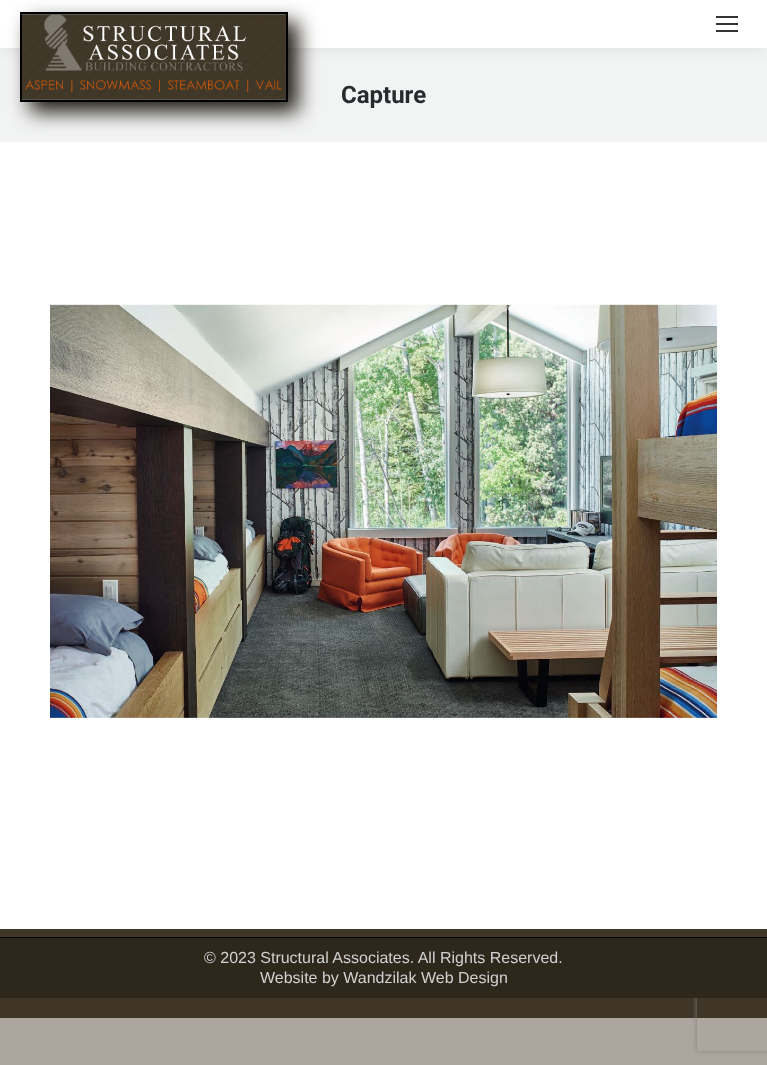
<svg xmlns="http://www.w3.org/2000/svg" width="767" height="1065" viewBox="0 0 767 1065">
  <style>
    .t1 { font: bold 24px Roboto; fill: #262b2e; }
    .t2 { font: 16px Liberation Sans; fill: #d1d1d1; }
  </style>
  <defs>
    <clipPath id="clip1"><path d="M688 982H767V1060H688ZM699 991H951C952 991 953 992 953 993V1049C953 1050 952 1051 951 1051H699C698 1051 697 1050 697 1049V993C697 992 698 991 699 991Z" clip-rule="evenodd"/></clipPath>
  </defs>
  <rect width="100%" height="100%" fill="#aca69e"/>
  <rect x="0" y="48" width="767" height="94" fill="#f2f3f3"/>
  <rect x="-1" y="-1" width="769" height="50" fill="#00000012" filter="blur(7.5px)"/>
  <rect x="0" y="0" width="767" height="48" fill="#fff"/>
  <rect x="0" y="142" width="767" height="787" fill="#fff"/>
  <rect x="30" y="22" width="268" height="90" fill="#1d1811" filter="blur(10px)"/>
  <rect x="21" y="13" width="266" height="88" fill="none" stroke="#000" stroke-width="2"/>
  <image x="22" y="14" width="264" height="86" href="images/1.png"/>
  <rect x="716" y="16" width="22" height="2" fill="#333"/>
  <rect x="716" y="23" width="22" height="2" fill="#333"/>
  <rect x="716" y="30" width="22" height="2" fill="#333"/>
  <text x="341" y="103" class="t1">Capture</text>
  <image x="50" y="304" width="667" height="414" href="images/2.png"/>
  <rect x="0" y="929" width="767" height="89" fill="#3f3627"/>
  <g clip-path="url(#clip1)">
    <rect x="697" y="991" width="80" height="60" rx="2" fill="#808080" filter="blur(2.5px)"/>
  </g>
  <rect x="0" y="938" width="767" height="60" fill="#2d271c"/>
  <rect x="0" y="937" width="767" height="1" fill="#000"/>
  <text x="204" y="963" class="t2">© 2023 Structural Associates. All Rights Reserved.</text>
  <text x="260" y="983" class="t2">Website by Wandzilak Web Design</text>
</svg>
